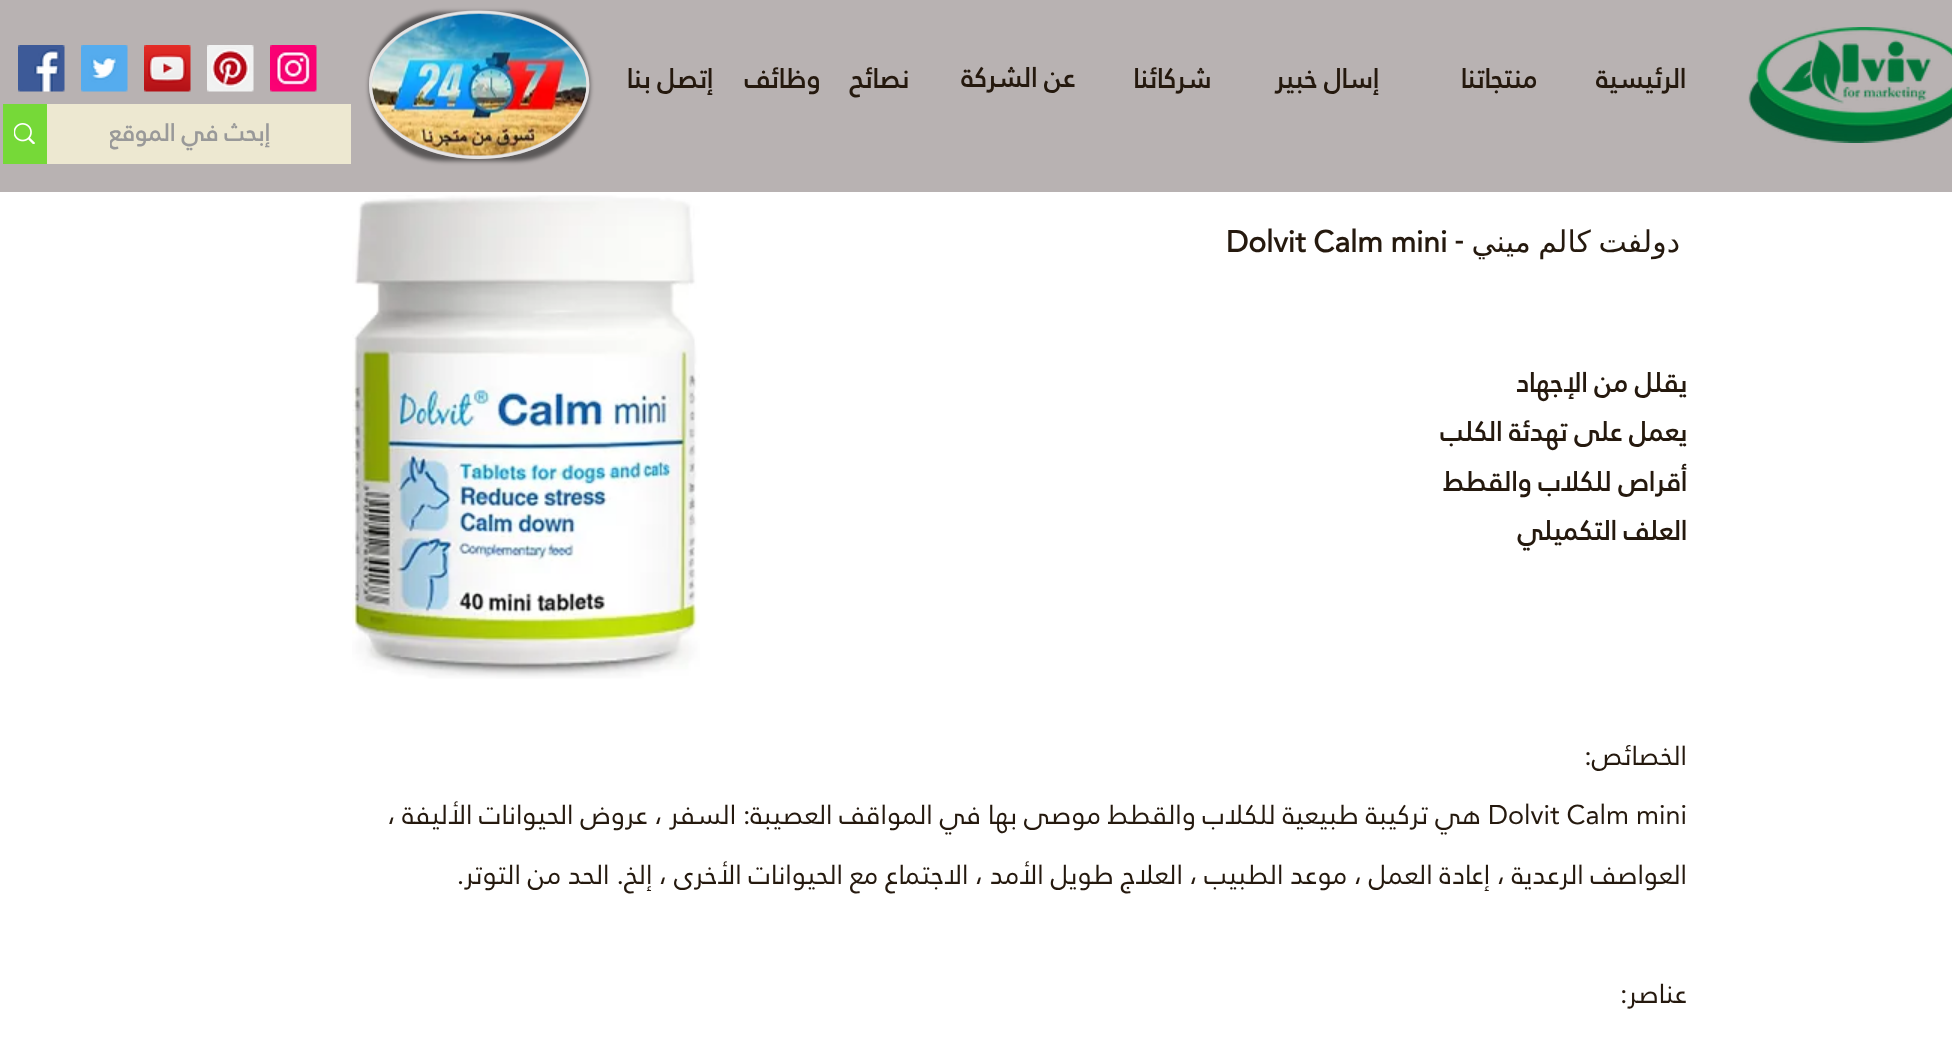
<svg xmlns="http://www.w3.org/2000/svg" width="1952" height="1042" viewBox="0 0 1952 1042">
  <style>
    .t1 { font: bold 27px 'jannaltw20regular'; direction: rtl; fill: #25190e; }
    .t2 { font: bold 24px 'jannaltw20regular'; direction: rtl; fill: #999; }
    .t3 { font: 30px DejaVu Sans; direction: rtl; fill: #25190e; }
    .t4 { font: 500 30px Oswald; fill: #25190e; }
    .t5 { font: bold 30px 'jannaltw20regular'; fill: #25190e; }
    .t6 { font: 27px 'jannaltw20regular'; direction: rtl; fill: #25190e; }
    .t7 { font: 27px 'jannaltw20regular'; fill: #25190e; }
  </style>
  <defs>
    <clipPath id="clip1"><path d="M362 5H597V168H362ZM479 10.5C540 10.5 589.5 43.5 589.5 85C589.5 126 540 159 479 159C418.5 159 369 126 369 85C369 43.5 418.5 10.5 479 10.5Z" clip-rule="evenodd"/></clipPath>
    <clipPath id="clip2"><rect x="110" y="111" width="205" height="44"/></clipPath>
  </defs>
  <rect width="100%" height="100%" fill="#fff"/>
  <rect x="0" y="0" width="1952" height="192" fill="#b8b2b2"/>
  <image x="1748" y="27" width="204" height="116" href="images/1.png"/>
  <text x="1686" y="88" class="t1">الرئيسية</text>
  <text x="1537" y="88" class="t1">منتجاتنا</text>
  <text x="1379" y="88" class="t1">إسال خبير</text>
  <text x="1211" y="88" class="t1">شركائنا</text>
  <text x="1075" y="87" class="t1">عن الشركة</text>
  <text x="909" y="88" class="t1">نصائح</text>
  <text x="820" y="88" class="t1">وظائف</text>
  <text x="713" y="88" class="t1">إتصل بنا</text>
  <g clip-path="url(#clip1)">
    <rect x="369" y="12" width="221" height="149" rx="74.5" fill="#00000080" filter="blur(2px)"/>
  </g>
  <ellipse cx="479" cy="85" rx="110" ry="74" fill="#ffffff69"/>
  <path d="M479 12C539.5 12 588 44.5 588 85C588 125 539.5 157.5 479 157.5C419 157.5 370.5 125 370.5 85C370.5 44.5 419 12 479 12Z" fill="none" stroke="#ffffff69" stroke-width="3"/>
  <image x="372" y="13" width="215" height="143" href="images/2.png"/>
  <image x="270" y="45" width="47" height="47" href="images/3.png"/>
  <image x="207" y="45" width="47" height="47" href="images/4.png"/>
  <image x="144" y="45" width="47" height="47" href="images/5.png"/>
  <image x="81" y="45" width="47" height="47" href="images/6.png"/>
  <image x="18" y="45" width="47" height="47" href="images/7.png"/>
  <rect x="47" y="104" width="304" height="60" fill="#ede8d1"/>
  <g clip-path="url(#clip2)">
    <text x="270" y="141" class="t2">إبحث في الموقع</text>
  </g>
  <rect x="3" y="104" width="44" height="60" fill="#76d938"/>
  <image x="14" y="123" width="21" height="21" href="images/8.png"/>
  <text x="1680" y="252" word-spacing="-2" class="t3">دولفت كالم ميني</text>
  <text x="1454" y="252" class="t4">-</text>
  <text x="1226" y="252" class="t5">Dolvit Calm mini</text>
  <image x="352" y="195" width="348" height="484" href="images/9.png"/>
  <text x="1687" y="392" class="t1">يقلل من الإجهاد</text>
  <text x="1687" y="441" class="t1">يعمل على تهدئة الكلب</text>
  <text x="1687" y="491" class="t1">أقراص للكلاب والقطط</text>
  <text x="1687" y="540" class="t1">العلف التكميلي</text>
  <text x="1687" y="765" class="t6">الخصائص:</text>
  <text x="1488" y="824" class="t7">Dolvit Calm mini</text>
  <text x="1481" y="824" class="t6">هي تركيبة طبيعية للكلاب والقطط موصى بها في المواقف العصيبة: السفر ، عروض الحيوانات الأليفة ،</text>
  <text x="1687" y="884" class="t6">العواصف الرعدية ، إعادة العمل ، موعد الطبيب ، العلاج طويل الأمد ، الاجتماع مع الحيوانات الأخرى ، إلخ. الحد من التوتر.</text>
  <text x="1687" y="1003" class="t6">عناصر:</text>
</svg>
